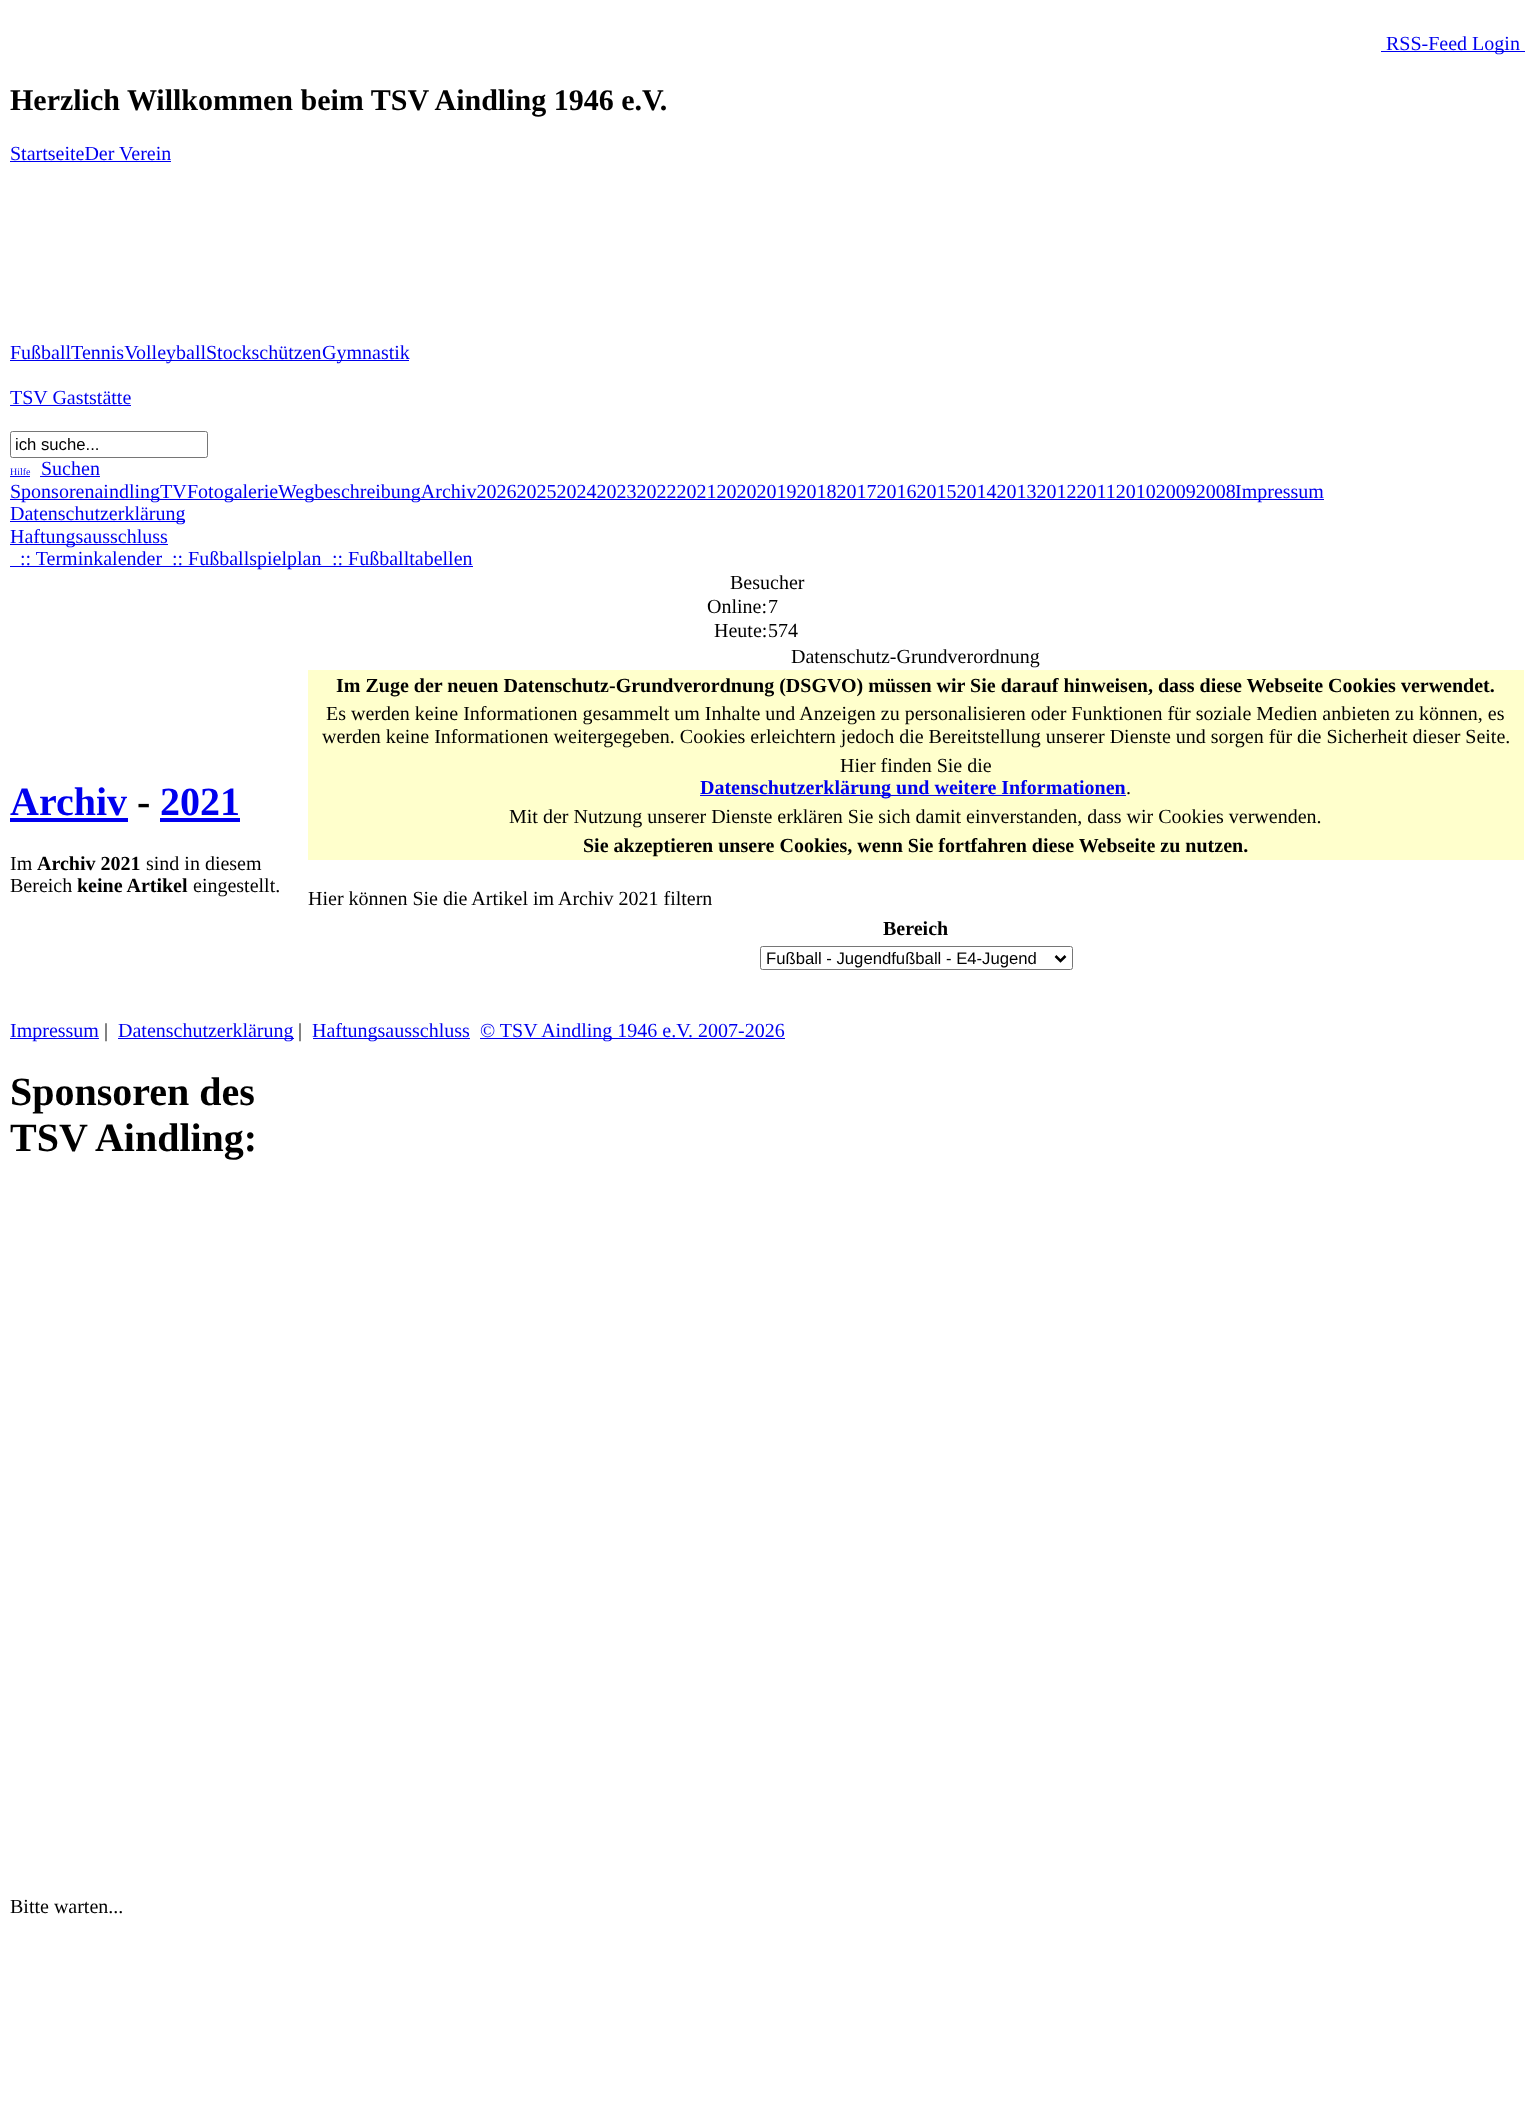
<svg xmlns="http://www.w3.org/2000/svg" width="1535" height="2112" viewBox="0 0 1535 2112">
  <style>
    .t1 { font: 20px Liberation Serif; fill: #00e; }
    .t2 { font: bold 30px Liberation Serif; fill: #000; }
    .t3 { font: 16.7px Liberation Sans; fill: #000; }
    .t4 { font: 10px Liberation Serif; fill: #00e; }
    .t5 { font: 20px Liberation Serif; fill: #000; }
    .t6 { font: bold 40px Liberation Serif; fill: #00e; }
    .t7 { font: bold 40px Liberation Serif; fill: #000; }
    .t8 { font: bold 20px Liberation Serif; fill: #000; }
    .t9 { font: bold 20px Liberation Serif; fill: #00e; }
  </style>
  <rect width="100%" height="100%" fill="#fff"/>
  <rect x="1381" y="51" width="144" height="1" fill="#00e"/>
  <text x="1386" y="50" class="t1">RSS-Feed Login</text>
  <text x="10" y="110" class="t2">Herzlich Willkommen beim TSV Aindling 1946 e.V.</text>
  <text x="10" y="160" class="t1">StartseiteDer Verein</text>
  <rect x="10" y="161" width="161" height="1" fill="#00e"/>
  <rect x="10" y="360" width="311" height="1" fill="#00e"/>
  <text x="10" y="359" class="t1">FußballTennisVolleyballStockschützen</text>
  <rect x="321" y="360" width="88" height="1" fill="#00e"/>
  <text x="322" y="359" class="t1">Gymnastik</text>
  <text x="10" y="404" class="t1">TSV Gaststätte</text>
  <rect x="10" y="405" width="121" height="1" fill="#00e"/>
  <rect x="10.5" y="431.5" width="197" height="26" rx="2" fill="none" stroke="#767676"/>
  <text x="15" y="450" class="t3">ich suche...</text>
  <text x="10" y="475" class="t4">Hilfe</text>
  <rect x="10" y="476" width="20" height="1" fill="#00e"/>
  <text x="41" y="475" class="t1">Suchen</text>
  <rect x="40" y="476" width="60" height="1" fill="#00e"/>
  <rect x="10" y="499" width="176" height="1" fill="#00e"/>
  <text x="10" y="498" class="t1">SponsorenaindlingTV</text>
  <rect x="186" y="499" width="234" height="1" fill="#00e"/>
  <text x="187" y="498" class="t1">FotogalerieWegbeschreibungArchiv2026202520242023202220212020201920182017201620152014201320122011201020092008</text>
  <rect x="420" y="499" width="904" height="1" fill="#00e"/>
  <text x="1235" y="498" class="t1">Impressum</text>
  <rect x="10" y="521" width="175" height="1" fill="#00e"/>
  <text x="10" y="520" class="t1">Datenschutzerklärung</text>
  <rect x="10" y="544" width="158" height="1" fill="#00e"/>
  <text x="10" y="543" class="t1">Haftungsausschluss</text>
  <text x="20" y="565" class="t1">:: Terminkalender</text>
  <rect x="10" y="566" width="463" height="1" fill="#00e"/>
  <text x="172" y="565" class="t1">:: Fußballspielplan</text>
  <text x="332" y="565" class="t1">:: Fußballtabellen</text>
  <text x="730" y="589" class="t5">Besucher</text>
  <text x="707" y="613" class="t5">Online:</text>
  <text x="768" y="613" class="t5">7</text>
  <text x="714" y="637" class="t5">Heute:</text>
  <text x="768" y="637" class="t5">574</text>
  <text x="10" y="815" class="t6">Archiv</text>
  <rect x="10" y="818" width="118" height="4" fill="#00e"/>
  <text x="137" y="815" class="t7">-</text>
  <text x="160" y="815" class="t6">2021</text>
  <rect x="160" y="818" width="80" height="4" fill="#00e"/>
  <text x="10" y="870" class="t5">Im</text>
  <text x="37" y="870" class="t8">Archiv 2021</text>
  <text x="146" y="870" class="t5">sind in diesem</text>
  <text x="10" y="892" class="t5">Bereich</text>
  <text x="77" y="892" class="t8">keine Artikel</text>
  <text x="193" y="892" class="t5">eingestellt.</text>
  <text x="791" y="663" class="t5">Datenschutz-Grundverordnung</text>
  <rect x="308" y="670" width="1216" height="190" fill="#ffc"/>
  <text x="336" y="692" class="t8">Im Zuge der neuen Datenschutz-Grundverordnung (DSGVO) müssen wir Sie darauf hinweisen, dass diese Webseite Cookies verwendet.</text>
  <text x="326" y="720" class="t5">Es werden keine Informationen gesammelt um Inhalte und Anzeigen zu personalisieren oder Funktionen für soziale Medien anbieten zu können, es</text>
  <text x="322" y="743" class="t5">werden keine Informationen weitergegeben. Cookies erleichtern jedoch die Bereitstellung unserer Dienste und sorgen für die Sicherheit dieser Seite.</text>
  <text x="840" y="772" class="t5">Hier finden Sie die</text>
  <rect x="700" y="795" width="426" height="1" fill="#00e"/>
  <text x="700" y="794" class="t9">Datenschutzerklärung und weitere Informationen</text>
  <text x="1126" y="794" class="t5">.</text>
  <text x="509" y="823" class="t5">Mit der Nutzung unserer Dienste erklären Sie sich damit einverstanden, dass wir Cookies verwenden.</text>
  <text x="583" y="852" class="t8">Sie akzeptieren unsere Cookies, wenn Sie fortfahren diese Webseite zu nutzen.</text>
  <text x="308" y="905" class="t5">Hier können Sie die Artikel im Archiv 2021 filtern</text>
  <text x="883" y="935" class="t8">Bereich</text>
  <rect x="760.5" y="946.5" width="312" height="23" rx="2" fill="none" stroke="#767676"/>
  <path d="M1055.5 956L1060.5 961L1065.5 956" fill="none" stroke="#000" stroke-width="2.5"/>
  <text x="766" y="964" class="t3">Fußball - Jugendfußball - E4-Jugend</text>
  <rect x="10" y="1038" width="89" height="1" fill="#00e"/>
  <text x="10" y="1037" class="t1">Impressum</text>
  <text x="104" y="1037" class="t5">|</text>
  <rect x="118" y="1038" width="176" height="1" fill="#00e"/>
  <text x="118" y="1037" class="t1">Datenschutzerklärung</text>
  <text x="298" y="1037" class="t5">|</text>
  <rect x="313" y="1038" width="157" height="1" fill="#00e"/>
  <text x="312" y="1037" class="t1">Haftungsausschluss</text>
  <rect x="480" y="1038" width="305" height="1" fill="#00e"/>
  <text x="480" y="1037" class="t1">© TSV Aindling 1946 e.V. 2007-2026</text>
  <text x="10" y="1105" class="t7">Sponsoren des</text>
  <text x="10" y="1151" class="t7">TSV Aindling:</text>
  <text x="10" y="1913" class="t5">Bitte warten...</text>
</svg>
